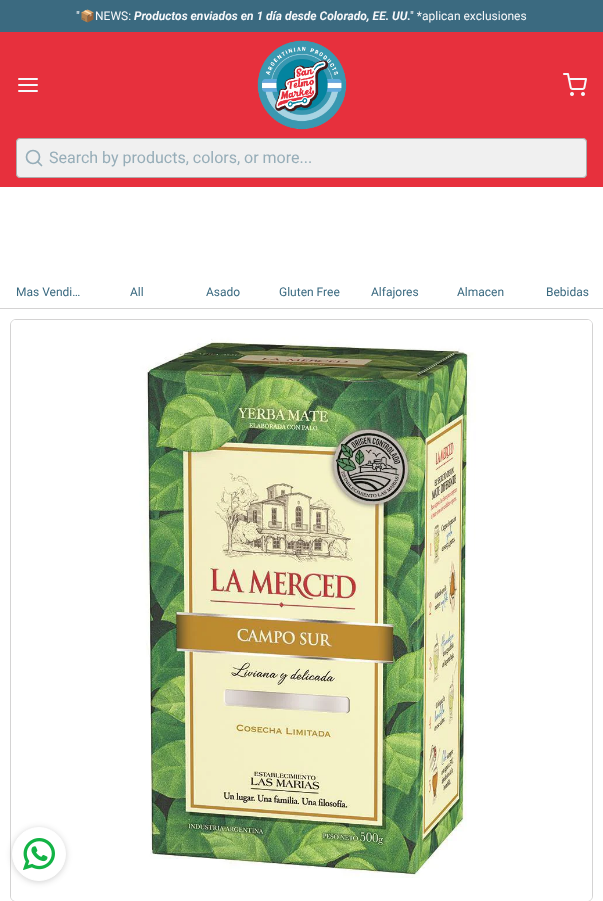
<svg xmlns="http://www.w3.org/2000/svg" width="603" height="901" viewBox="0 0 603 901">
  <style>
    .t1 { font: 12px Roboto; fill: #f7f8fa; }
    .t2 { font: 12px Noto Color Emoji; fill: #f7f8fa; }
    .t3 { font: italic bold 12px Roboto; fill: #f7f8fa; }
    .t4 { font: 16px Roboto; fill: #96adb8; }
    .t5 { font: 12px Roboto; fill: #3b6a80; }
  </style>
  <rect width="100%" height="100%" fill="#fff"/>
  <rect x="0" y="0" width="603" height="32" fill="#3b6a80"/>
  <text x="76" y="20" class="t1">"</text>
  <text x="80" y="20" class="t2">📦</text>
  <text x="95" y="20" class="t1">NEWS:</text>
  <text x="134" y="20" class="t3">Productos enviados en 1 día desde Colorado, EE. UU.</text>
  <text x="410" y="20" class="t1">" *aplican exclusiones</text>
  <rect x="0" y="32" width="603" height="155" fill="#e7303d"/>
  <path d="M19 85H37M19 79H37M19 91H37" fill="none" stroke="#f7f8fa" stroke-width="2" stroke-linecap="round" stroke-linejoin="round"/>
  <image x="257" y="40" width="90" height="90" href="images/1.png"/>
  <image x="563" y="73" width="24" height="23" href="images/2.png"/>
  <rect x="16.5" y="138.5" width="570" height="39" rx="3.5" fill="none" stroke="#aeacac"/>
  <rect x="16.5" y="138.5" width="570" height="39" rx="3.5" fill="#f0f0f0" stroke="#aeacac"/>
  <circle cx="33" cy="157" r="6.5" fill="none" stroke="#96adb8" stroke-width="1.7"/>
  <path d="M41.5 165.5L38 162" fill="none" stroke="#96adb8" stroke-width="1.7" stroke-linecap="round" stroke-linejoin="round"/>
  <text x="49" y="163" class="t4">Search by products, colors, or more...</text>
  <rect x="0" y="308" width="603" height="1" fill="#d4d3d3"/>
  <text x="16" y="296" class="t5">Mas Vendi…</text>
  <text x="130" y="296" class="t5">All</text>
  <text x="206" y="296" class="t5">Asado</text>
  <text x="279" y="296" class="t5">Gluten Free</text>
  <text x="371" y="296" class="t5">Alfajores</text>
  <text x="457" y="296" class="t5">Almacen</text>
  <text x="546" y="296" class="t5">Bebidas</text>
  <rect x="10.5" y="319.5" width="582" height="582" rx="5.5" fill="none" stroke="#d4d3d3"/>
  <rect x="11" y="320" width="581" height="581" rx="5" fill="#fff"/>
  <image x="13" y="320" width="579" height="558" href="images/3.png"/>
  <rect x="12" y="828" width="54" height="54" rx="27" fill="#1b1b1b33" filter="blur(3px)"/>
  <circle cx="39" cy="854" r="26.5" fill="#fff" stroke="#fff"/>
  <image x="23" y="838" width="32" height="32" href="images/4.png"/>
</svg>
